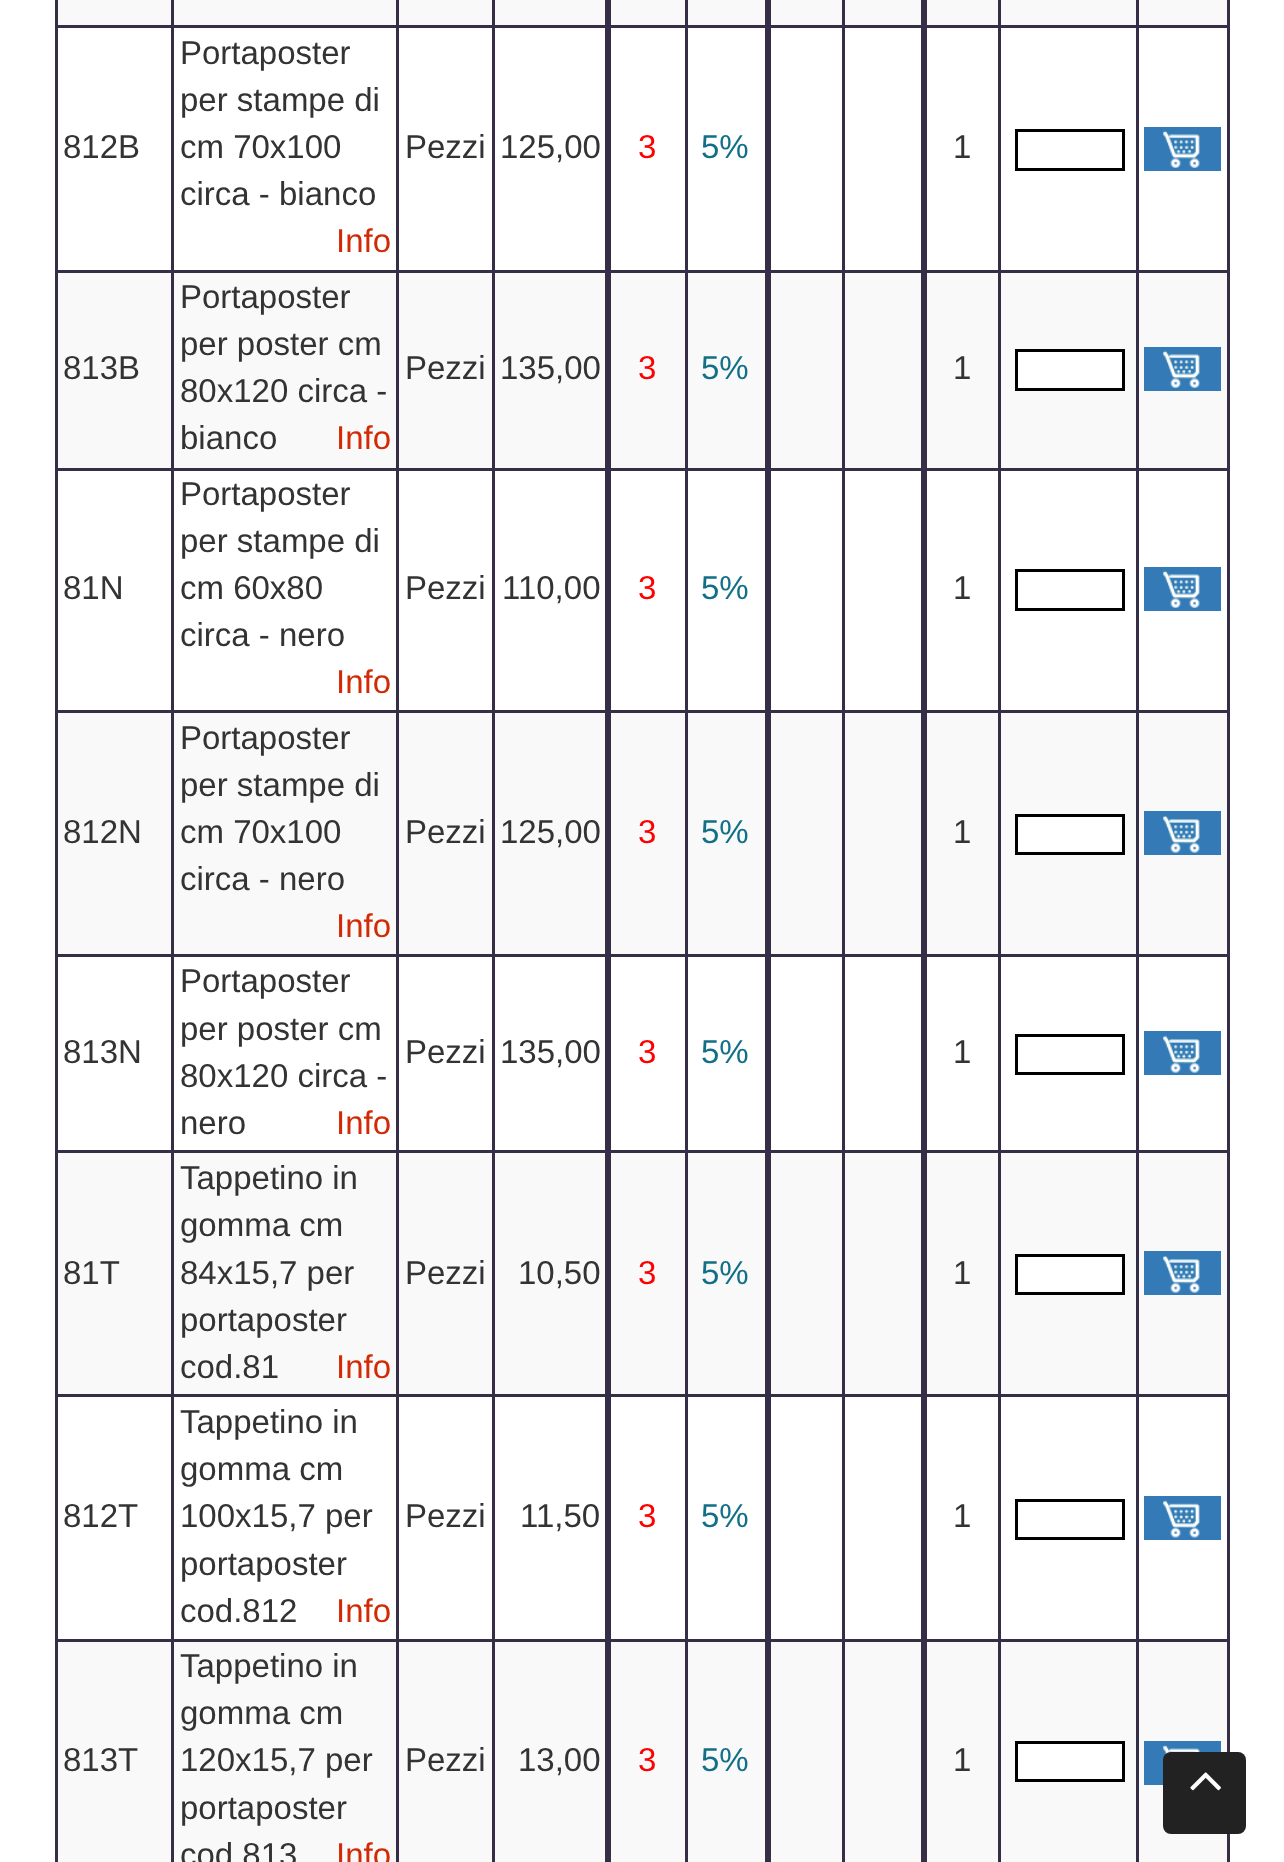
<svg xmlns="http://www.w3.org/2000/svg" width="1284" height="1862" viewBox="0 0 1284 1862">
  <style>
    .t1 { font: 33px Liberation Sans; fill: #333; }
    .t2 { font: 33px Liberation Sans; fill: #d12a04; }
    .t3 { font: 33px Liberation Sans; fill: #f00; }
    .t4 { font: 33px Liberation Sans; fill: #117088; }
  </style>
  <rect width="100%" height="100%" fill="#fff"/>
  <rect x="1227" y="0" width="3" height="1862" fill="#352e46"/>
  <rect x="55" y="0" width="3" height="1862" fill="#352e46"/>
  <rect x="58" y="0" width="1169" height="25" fill="#f9f9f9"/>
  <rect x="1136" y="25" width="93" height="3" fill="#352e46"/>
  <rect x="1136" y="270" width="93" height="3" fill="#352e46"/>
  <rect x="58" y="273" width="1169" height="195" fill="#f9f9f9"/>
  <rect x="1136" y="468" width="93" height="3" fill="#352e46"/>
  <rect x="1136" y="710" width="93" height="3" fill="#352e46"/>
  <rect x="58" y="713" width="1169" height="241" fill="#f9f9f9"/>
  <rect x="1136" y="954" width="93" height="3" fill="#352e46"/>
  <rect x="1136" y="1150" width="93" height="3" fill="#352e46"/>
  <rect x="58" y="1153" width="1169" height="241" fill="#f9f9f9"/>
  <rect x="1136" y="1394" width="93" height="3" fill="#352e46"/>
  <rect x="1136" y="1639" width="93" height="3" fill="#352e46"/>
  <rect x="58" y="1642" width="1169" height="220" fill="#f9f9f9"/>
  <rect x="1136" y="1639" width="3" height="223" fill="#352e46"/>
  <rect x="998" y="1639" width="141" height="3" fill="#352e46"/>
  <rect x="1136" y="1394" width="3" height="248" fill="#352e46"/>
  <rect x="998" y="1394" width="141" height="3" fill="#352e46"/>
  <rect x="1136" y="1150" width="3" height="247" fill="#352e46"/>
  <rect x="998" y="1150" width="141" height="3" fill="#352e46"/>
  <rect x="1136" y="954" width="3" height="198" fill="#352e46"/>
  <rect x="998" y="954" width="141" height="3" fill="#352e46"/>
  <rect x="1136" y="710" width="3" height="247" fill="#352e46"/>
  <rect x="998" y="710" width="141" height="3" fill="#352e46"/>
  <rect x="1136" y="468" width="3" height="244" fill="#352e46"/>
  <rect x="998" y="468" width="141" height="3" fill="#352e46"/>
  <rect x="1136" y="270" width="3" height="200" fill="#352e46"/>
  <rect x="998" y="270" width="141" height="3" fill="#352e46"/>
  <rect x="1136" y="25" width="3" height="247" fill="#352e46"/>
  <rect x="998" y="25" width="141" height="3" fill="#352e46"/>
  <rect x="998" y="1639" width="3" height="223" fill="#352e46"/>
  <rect x="842" y="1639" width="159" height="3" fill="#352e46"/>
  <rect x="998" y="1394" width="3" height="248" fill="#352e46"/>
  <rect x="842" y="1394" width="159" height="3" fill="#352e46"/>
  <rect x="998" y="1150" width="3" height="247" fill="#352e46"/>
  <rect x="842" y="1150" width="159" height="3" fill="#352e46"/>
  <rect x="998" y="954" width="3" height="198" fill="#352e46"/>
  <rect x="842" y="954" width="159" height="3" fill="#352e46"/>
  <rect x="998" y="710" width="3" height="247" fill="#352e46"/>
  <rect x="842" y="710" width="159" height="3" fill="#352e46"/>
  <rect x="998" y="468" width="3" height="244" fill="#352e46"/>
  <rect x="842" y="468" width="159" height="3" fill="#352e46"/>
  <rect x="998" y="270" width="3" height="200" fill="#352e46"/>
  <rect x="842" y="270" width="159" height="3" fill="#352e46"/>
  <rect x="998" y="25" width="3" height="247" fill="#352e46"/>
  <rect x="842" y="25" width="159" height="3" fill="#352e46"/>
  <rect x="842" y="1639" width="3" height="223" fill="#352e46"/>
  <rect x="685" y="1639" width="159" height="3" fill="#352e46"/>
  <rect x="842" y="1394" width="3" height="248" fill="#352e46"/>
  <rect x="685" y="1394" width="159" height="3" fill="#352e46"/>
  <rect x="842" y="1150" width="3" height="247" fill="#352e46"/>
  <rect x="685" y="1150" width="159" height="3" fill="#352e46"/>
  <rect x="842" y="954" width="3" height="198" fill="#352e46"/>
  <rect x="685" y="954" width="159" height="3" fill="#352e46"/>
  <rect x="842" y="710" width="3" height="247" fill="#352e46"/>
  <rect x="685" y="710" width="159" height="3" fill="#352e46"/>
  <rect x="842" y="468" width="3" height="244" fill="#352e46"/>
  <rect x="685" y="468" width="159" height="3" fill="#352e46"/>
  <rect x="842" y="270" width="3" height="200" fill="#352e46"/>
  <rect x="685" y="270" width="159" height="3" fill="#352e46"/>
  <rect x="842" y="25" width="3" height="247" fill="#352e46"/>
  <rect x="685" y="25" width="159" height="3" fill="#352e46"/>
  <rect x="685" y="1639" width="3" height="223" fill="#352e46"/>
  <rect x="492" y="1639" width="196" height="3" fill="#352e46"/>
  <rect x="685" y="1394" width="3" height="248" fill="#352e46"/>
  <rect x="492" y="1394" width="196" height="3" fill="#352e46"/>
  <rect x="685" y="1150" width="3" height="247" fill="#352e46"/>
  <rect x="492" y="1150" width="196" height="3" fill="#352e46"/>
  <rect x="685" y="954" width="3" height="198" fill="#352e46"/>
  <rect x="492" y="954" width="196" height="3" fill="#352e46"/>
  <rect x="685" y="710" width="3" height="247" fill="#352e46"/>
  <rect x="492" y="710" width="196" height="3" fill="#352e46"/>
  <rect x="685" y="468" width="3" height="244" fill="#352e46"/>
  <rect x="492" y="468" width="196" height="3" fill="#352e46"/>
  <rect x="685" y="270" width="3" height="200" fill="#352e46"/>
  <rect x="492" y="270" width="196" height="3" fill="#352e46"/>
  <rect x="685" y="25" width="3" height="247" fill="#352e46"/>
  <rect x="492" y="25" width="196" height="3" fill="#352e46"/>
  <rect x="492" y="1639" width="3" height="223" fill="#352e46"/>
  <rect x="396" y="1639" width="99" height="3" fill="#352e46"/>
  <rect x="492" y="1394" width="3" height="248" fill="#352e46"/>
  <rect x="396" y="1394" width="99" height="3" fill="#352e46"/>
  <rect x="492" y="1150" width="3" height="247" fill="#352e46"/>
  <rect x="396" y="1150" width="99" height="3" fill="#352e46"/>
  <rect x="492" y="954" width="3" height="198" fill="#352e46"/>
  <rect x="396" y="954" width="99" height="3" fill="#352e46"/>
  <rect x="492" y="710" width="3" height="247" fill="#352e46"/>
  <rect x="396" y="710" width="99" height="3" fill="#352e46"/>
  <rect x="492" y="468" width="3" height="244" fill="#352e46"/>
  <rect x="396" y="468" width="99" height="3" fill="#352e46"/>
  <rect x="492" y="270" width="3" height="200" fill="#352e46"/>
  <rect x="396" y="270" width="99" height="3" fill="#352e46"/>
  <rect x="492" y="25" width="3" height="247" fill="#352e46"/>
  <rect x="396" y="25" width="99" height="3" fill="#352e46"/>
  <rect x="396" y="1639" width="3" height="223" fill="#352e46"/>
  <rect x="171" y="1639" width="228" height="3" fill="#352e46"/>
  <rect x="396" y="1394" width="3" height="248" fill="#352e46"/>
  <rect x="171" y="1394" width="228" height="3" fill="#352e46"/>
  <rect x="396" y="1150" width="3" height="247" fill="#352e46"/>
  <rect x="171" y="1150" width="228" height="3" fill="#352e46"/>
  <rect x="396" y="954" width="3" height="198" fill="#352e46"/>
  <rect x="171" y="954" width="228" height="3" fill="#352e46"/>
  <rect x="396" y="710" width="3" height="247" fill="#352e46"/>
  <rect x="171" y="710" width="228" height="3" fill="#352e46"/>
  <rect x="396" y="468" width="3" height="244" fill="#352e46"/>
  <rect x="171" y="468" width="228" height="3" fill="#352e46"/>
  <rect x="396" y="270" width="3" height="200" fill="#352e46"/>
  <rect x="171" y="270" width="228" height="3" fill="#352e46"/>
  <rect x="396" y="25" width="3" height="247" fill="#352e46"/>
  <rect x="171" y="25" width="228" height="3" fill="#352e46"/>
  <rect x="171" y="1639" width="3" height="223" fill="#352e46"/>
  <rect x="55" y="1639" width="118" height="3" fill="#352e46"/>
  <rect x="171" y="1394" width="3" height="248" fill="#352e46"/>
  <rect x="55" y="1394" width="118" height="3" fill="#352e46"/>
  <rect x="171" y="1150" width="3" height="247" fill="#352e46"/>
  <rect x="55" y="1150" width="118" height="3" fill="#352e46"/>
  <rect x="171" y="954" width="3" height="198" fill="#352e46"/>
  <rect x="55" y="954" width="118" height="3" fill="#352e46"/>
  <rect x="171" y="710" width="3" height="247" fill="#352e46"/>
  <rect x="55" y="710" width="118" height="3" fill="#352e46"/>
  <rect x="171" y="468" width="3" height="244" fill="#352e46"/>
  <rect x="55" y="468" width="118" height="3" fill="#352e46"/>
  <rect x="171" y="270" width="3" height="200" fill="#352e46"/>
  <rect x="55" y="270" width="118" height="3" fill="#352e46"/>
  <rect x="171" y="25" width="3" height="247" fill="#352e46"/>
  <rect x="55" y="25" width="118" height="3" fill="#352e46"/>
  <rect x="171" y="0" width="3" height="28" fill="#352e46"/>
  <rect x="396" y="0" width="3" height="28" fill="#352e46"/>
  <rect x="492" y="0" width="3" height="28" fill="#352e46"/>
  <rect x="685" y="0" width="3" height="28" fill="#352e46"/>
  <rect x="842" y="0" width="3" height="28" fill="#352e46"/>
  <rect x="998" y="0" width="3" height="28" fill="#352e46"/>
  <rect x="1136" y="0" width="3" height="28" fill="#352e46"/>
  <text x="63" y="158" class="t1">812B</text>
  <text x="180" y="64" class="t1">Portaposter</text>
  <text x="180" y="111" class="t1">per stampe di</text>
  <text x="180" y="158" class="t1">cm 70x100</text>
  <text x="180" y="205" class="t1">circa - bianco</text>
  <text x="336" y="252" class="t2">Info</text>
  <text x="405" y="158" class="t1">Pezzi</text>
  <text x="500" y="158" class="t1">125,00</text>
  <text x="638" y="158" class="t3">3</text>
  <text x="701" y="158" class="t4">5%</text>
  <text x="953" y="158" class="t1">1</text>
  <rect x="1016.5" y="130.5" width="107" height="39" fill="none" stroke="#000" stroke-width="3"/>
  <rect x="1144" y="127" width="77" height="44" fill="#337ab7"/>
  <image x="1163" y="130" width="37" height="38" href="images/1.png"/>
  <text x="63" y="379" class="t1">813B</text>
  <text x="180" y="308" class="t1">Portaposter</text>
  <text x="180" y="355" class="t1">per poster cm</text>
  <text x="180" y="402" class="t1">80x120 circa -</text>
  <text x="180" y="449" class="t1">bianco</text>
  <text x="336" y="449" class="t2">Info</text>
  <text x="405" y="379" class="t1">Pezzi</text>
  <text x="500" y="379" class="t1">135,00</text>
  <text x="638" y="379" class="t3">3</text>
  <text x="701" y="379" class="t4">5%</text>
  <text x="953" y="379" class="t1">1</text>
  <rect x="1016.5" y="350.5" width="107" height="39" fill="#fff" stroke="#000" stroke-width="3"/>
  <rect x="1144" y="347" width="77" height="44" fill="#337ab7"/>
  <image x="1163" y="350" width="37" height="38" href="images/1.png"/>
  <text x="63" y="599" class="t1">81N</text>
  <text x="180" y="505" class="t1">Portaposter</text>
  <text x="180" y="552" class="t1">per stampe di</text>
  <text x="180" y="599" class="t1">cm 60x80</text>
  <text x="180" y="646" class="t1">circa - nero</text>
  <text x="336" y="693" class="t2">Info</text>
  <text x="405" y="599" class="t1">Pezzi</text>
  <text x="502" y="599" class="t1">110,00</text>
  <text x="638" y="599" class="t3">3</text>
  <text x="701" y="599" class="t4">5%</text>
  <text x="953" y="599" class="t1">1</text>
  <rect x="1016.5" y="570.5" width="107" height="39" fill="none" stroke="#000" stroke-width="3"/>
  <rect x="1144" y="567" width="77" height="44" fill="#337ab7"/>
  <image x="1163" y="570" width="37" height="38" href="images/1.png"/>
  <text x="63" y="843" class="t1">812N</text>
  <text x="180" y="749" class="t1">Portaposter</text>
  <text x="180" y="796" class="t1">per stampe di</text>
  <text x="180" y="843" class="t1">cm 70x100</text>
  <text x="180" y="890" class="t1">circa - nero</text>
  <text x="336" y="937" class="t2">Info</text>
  <text x="405" y="843" class="t1">Pezzi</text>
  <text x="500" y="843" class="t1">125,00</text>
  <text x="638" y="843" class="t3">3</text>
  <text x="701" y="843" class="t4">5%</text>
  <text x="953" y="843" class="t1">1</text>
  <rect x="1016.5" y="815.5" width="107" height="38" fill="#fff" stroke="#000" stroke-width="3"/>
  <rect x="1144" y="811" width="77" height="44" fill="#337ab7"/>
  <image x="1163" y="815" width="37" height="38" href="images/2.png"/>
  <text x="63" y="1063" class="t1">813N</text>
  <text x="180" y="992" class="t1">Portaposter</text>
  <text x="180" y="1040" class="t1">per poster cm</text>
  <text x="180" y="1087" class="t1">80x120 circa -</text>
  <text x="180" y="1134" class="t1">nero</text>
  <text x="336" y="1134" class="t2">Info</text>
  <text x="405" y="1063" class="t1">Pezzi</text>
  <text x="500" y="1063" class="t1">135,00</text>
  <text x="638" y="1063" class="t3">3</text>
  <text x="701" y="1063" class="t4">5%</text>
  <text x="953" y="1063" class="t1">1</text>
  <rect x="1016.5" y="1035.5" width="107" height="38" fill="none" stroke="#000" stroke-width="3"/>
  <rect x="1144" y="1031" width="77" height="44" fill="#337ab7"/>
  <image x="1163" y="1035" width="37" height="38" href="images/2.png"/>
  <text x="63" y="1284" class="t1">81T</text>
  <text x="180" y="1189" class="t1">Tappetino in</text>
  <text x="180" y="1236" class="t1">gomma cm</text>
  <text x="180" y="1284" class="t1">84x15,7 per</text>
  <text x="180" y="1331" class="t1">portaposter</text>
  <text x="180" y="1378" class="t1">cod.81</text>
  <text x="336" y="1378" class="t2">Info</text>
  <text x="405" y="1284" class="t1">Pezzi</text>
  <text x="518" y="1284" class="t1">10,50</text>
  <text x="638" y="1284" class="t3">3</text>
  <text x="701" y="1284" class="t4">5%</text>
  <text x="953" y="1284" class="t1">1</text>
  <rect x="1016.5" y="1255.5" width="107" height="38" fill="#fff" stroke="#000" stroke-width="3"/>
  <rect x="1144" y="1251" width="77" height="44" fill="#337ab7"/>
  <image x="1163" y="1255" width="37" height="38" href="images/3.png"/>
  <text x="63" y="1527" class="t1">812T</text>
  <text x="180" y="1433" class="t1">Tappetino in</text>
  <text x="180" y="1480" class="t1">gomma cm</text>
  <text x="180" y="1527" class="t1">100x15,7 per</text>
  <text x="180" y="1575" class="t1">portaposter</text>
  <text x="180" y="1622" class="t1">cod.812</text>
  <text x="336" y="1622" class="t2">Info</text>
  <text x="405" y="1527" class="t1">Pezzi</text>
  <text x="520" y="1527" class="t1">11,50</text>
  <text x="638" y="1527" class="t3">3</text>
  <text x="701" y="1527" class="t4">5%</text>
  <text x="953" y="1527" class="t1">1</text>
  <rect x="1016.5" y="1500.5" width="107" height="38" fill="none" stroke="#000" stroke-width="3"/>
  <rect x="1144" y="1496" width="77" height="44" fill="#337ab7"/>
  <image x="1163" y="1500" width="37" height="38" href="images/4.png"/>
  <text x="63" y="1771" class="t1">813T</text>
  <text x="180" y="1677" class="t1">Tappetino in</text>
  <text x="180" y="1724" class="t1">gomma cm</text>
  <text x="180" y="1771" class="t1">120x15,7 per</text>
  <text x="180" y="1819" class="t1">portaposter</text>
  <text x="180" y="1866" class="t1">cod.813</text>
  <text x="336" y="1866" class="t2">Info</text>
  <text x="405" y="1771" class="t1">Pezzi</text>
  <text x="518" y="1771" class="t1">13,00</text>
  <rect x="605" y="0" width="6" height="1862" fill="#352e46"/>
  <text x="638" y="1771" class="t3">3</text>
  <rect x="765" y="0" width="6" height="1862" fill="#352e46"/>
  <rect x="921" y="0" width="6" height="1862" fill="#352e46"/>
  <rect x="1016.5" y="1742.5" width="107" height="38" fill="#fff" stroke="#000" stroke-width="3"/>
  <rect x="1144" y="1741" width="77" height="44" fill="#337ab7"/>
  <image x="1163" y="1745" width="37" height="10" href="images/5.png"/>
  <text x="701" y="1771" class="t4">5%</text>
  <text x="953" y="1771" class="t1">1</text>
  <rect x="1163" y="1752" width="83" height="82" rx="8" fill="#222"/>
  <image x="1190" y="1772" width="31" height="19" href="images/6.png"/>
</svg>
